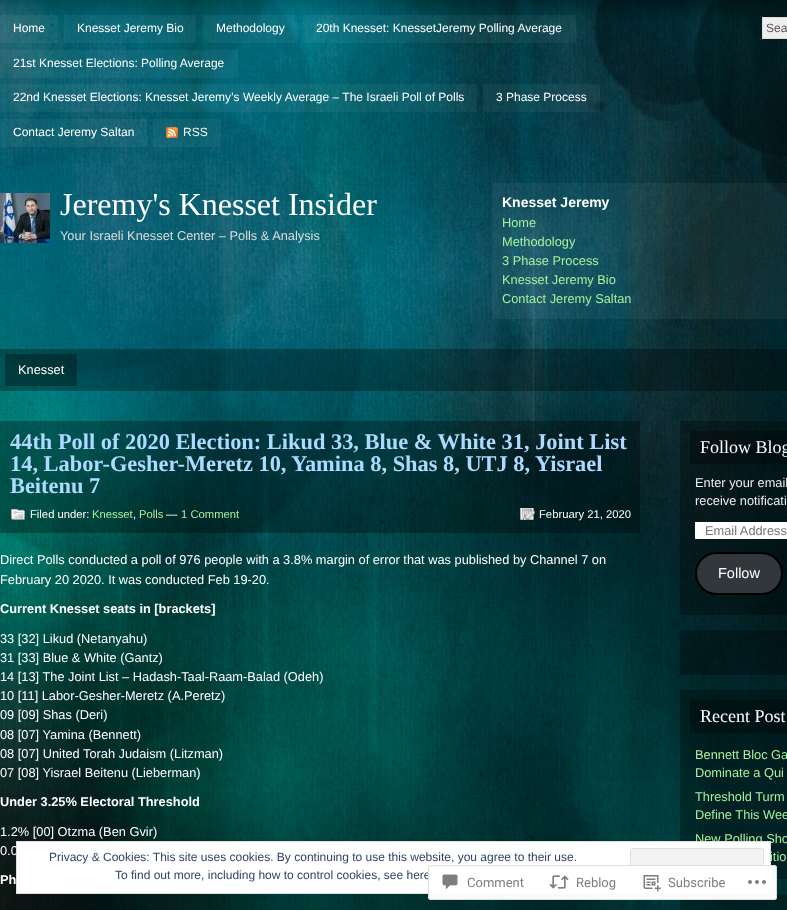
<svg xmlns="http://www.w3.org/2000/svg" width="787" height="910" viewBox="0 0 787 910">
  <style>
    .t1 { font: 12px Liberation Sans; fill: #fff; }
    .t2 { font: 12px Liberation Sans; fill: #555; }
    .t3 { font: 32px Liberation Serif; fill: #fff; }
    .t4 { font: 12.8px Liberation Sans; fill: #ddd; }
    .t5 { font: bold 14px Liberation Sans; fill: #fff; }
    .t6 { font: 12.8px Liberation Sans; fill: #a8ef9d; }
    .t7 { font: 12.8px Liberation Sans; fill: #fff; }
    .t8 { font: bold 22.4px Liberation Serif; fill: #afdaff; }
    .t9 { font: 11.25px Liberation Sans; fill: #fff; }
    .t10 { font: 11.25px Liberation Sans; fill: #a8ef9d; }
    .t11 { font: bold 12.8px Liberation Sans; fill: #fff; }
    .t12 { font: 18px Liberation Serif; fill: #fff; }
    .t13 { font: 12.8px Liberation Sans; fill: #eee; }
    .t14 { font: 12.8px Liberation Sans; fill: #757575; }
    .t15 { font: 14.5px Liberation Sans; fill: #fff; }
    .t16 { font: 12px Liberation Sans; fill: #2e4467; }
    .t17 { font: 13px Roboto; fill: #7b7f84; }
  </style>
  <rect width="100%" height="100%" fill="#fff"/>
  <image x="0" y="0" width="787" height="910" href="images/1.png"/>
  <rect x="0" y="15" width="58" height="28" fill="#ffffff0d"/>
  <text x="13" y="32" class="t1">Home</text>
  <rect x="64" y="15" width="132" height="28" fill="#ffffff0d"/>
  <text x="77" y="32" class="t1">Knesset Jeremy Bio</text>
  <rect x="203" y="15" width="94" height="28" fill="#ffffff0d"/>
  <text x="216" y="32" class="t1">Methodology</text>
  <rect x="303" y="15" width="273" height="28" fill="#ffffff0d"/>
  <text x="316" y="32" class="t1">20th Knesset: KnessetJeremy Polling Average</text>
  <rect x="0" y="50" width="238" height="28" fill="#ffffff0d"/>
  <text x="13" y="67" class="t1">21st Knesset Elections: Polling Average</text>
  <rect x="0" y="84" width="477" height="28" fill="#ffffff0d"/>
  <text x="13" y="101" class="t1">22nd Knesset Elections: Knesset Jeremy’s Weekly Average – The Israeli Poll of Polls</text>
  <rect x="483" y="84" width="117" height="28" fill="#ffffff0d"/>
  <text x="496" y="101" class="t1">3 Phase Process</text>
  <rect x="0" y="119" width="147" height="28" fill="#ffffff0d"/>
  <text x="13" y="136" class="t1">Contact Jeremy Saltan</text>
  <rect x="153" y="119" width="68" height="28" fill="#ffffff0d"/>
  <image x="166" y="127" width="12" height="11" href="images/2.png"/>
  <text x="183" y="136" class="t1">RSS</text>
  <rect x="762.5" y="17.5" width="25" height="21" fill="#eee" stroke="#ddd"/>
  <text x="766" y="32" class="t2">Sea</text>
  <image x="0" y="193" width="50" height="50" href="images/3.png"/>
  <text x="60" y="215" class="t3">Jeremy's Knesset Insider</text>
  <text x="60" y="240" class="t4">Your Israeli Knesset Center – Polls &amp; Analysis</text>
  <rect x="492" y="183" width="295" height="136" fill="#ffffff0d"/>
  <text x="502" y="207" class="t5">Knesset Jeremy</text>
  <text x="502" y="227" class="t6">Home</text>
  <text x="502" y="246" class="t6">Methodology</text>
  <text x="502" y="265" class="t6">3 Phase Process</text>
  <text x="502" y="284" class="t6">Knesset Jeremy Bio</text>
  <text x="502" y="303" class="t6">Contact Jeremy Saltan</text>
  <rect x="0" y="349" width="787" height="42" fill="#0000004d"/>
  <rect x="5" y="354" width="72" height="32" fill="#0000004d"/>
  <text x="18" y="374" class="t7">Knesset</text>
  <rect x="0" y="421" width="640" height="112" fill="#0000004d"/>
  <text x="10" y="449" class="t8">44th Poll of 2020 Election: Likud 33, Blue &amp; White 31, Joint List</text>
  <text x="10" y="471" class="t8">14, Labor-Gesher-Meretz 10, Yamina 8, Shas 8, UTJ 8, Yisrael</text>
  <text x="10" y="493" class="t8">Beitenu 7</text>
  <image x="11" y="509" width="14" height="11" href="images/4.png"/>
  <text x="30" y="518" class="t9">Filed under:</text>
  <text x="92" y="518" class="t10">Knesset</text>
  <text x="139" y="518" class="t10">Polls</text>
  <text x="166" y="518" class="t9">—</text>
  <text x="181" y="518" class="t10">1 Comment</text>
  <text x="133" y="518" class="t9">,</text>
  <image x="520" y="508" width="15" height="12" href="images/5.png"/>
  <text x="539" y="518" class="t9">February 21, 2020</text>
  <text x="0" y="564" class="t7">Direct Polls conducted a poll of 976 people with a 3.8% margin of error that was published by Channel 7 on</text>
  <text x="0" y="584" class="t7">February 20 2020. It was conducted Feb 19-20.</text>
  <text x="0" y="613" class="t11">Current Knesset seats in [brackets]</text>
  <text x="0" y="643" class="t7">33 [32] Likud (Netanyahu)</text>
  <text x="0" y="662" class="t7">31 [33] Blue &amp; White (Gantz)</text>
  <text x="0" y="681" class="t7">14 [13] The Joint List – Hadash-Taal-Raam-Balad (Odeh)</text>
  <text x="0" y="700" class="t7">10 [11] Labor-Gesher-Meretz (A.Peretz)</text>
  <text x="0" y="719" class="t7">09 [09] Shas (Deri)</text>
  <text x="0" y="739" class="t7">08 [07] Yamina (Bennett)</text>
  <text x="0" y="758" class="t7">08 [07] United Torah Judaism (Litzman)</text>
  <text x="0" y="777" class="t7">07 [08] Yisrael Beitenu (Lieberman)</text>
  <text x="0" y="806" class="t11">Under 3.25% Electoral Threshold</text>
  <text x="0" y="836" class="t7">1.2% [00] Otzma (Ben Gvir)</text>
  <text x="0" y="855" class="t7">0.0</text>
  <text x="0" y="884" class="t11">Ph</text>
  <rect x="680" y="421" width="107" height="194" fill="#0000004d"/>
  <rect x="690" y="431" width="97" height="33" fill="#0000004d"/>
  <text x="700" y="453" class="t12">Follow Blog</text>
  <text x="695" y="487" class="t13">Enter your email</text>
  <text x="695" y="505" class="t13">receive notificati</text>
  <rect x="695" y="522" width="92" height="17" fill="#fff"/>
  <text x="705" y="535" class="t14">Email Address</text>
  <rect x="696" y="553" width="86" height="41" rx="20.5" fill="#32373c" stroke="#000" stroke-width="2"/>
  <text x="718" y="578" class="t15">Follow</text>
  <rect x="680" y="630" width="107" height="45" fill="#0000004d"/>
  <rect x="680" y="690" width="107" height="189" fill="#0000004d"/>
  <rect x="690" y="700" width="97" height="33" fill="#0000004d"/>
  <text x="700" y="722" class="t12">Recent Post</text>
  <text x="695" y="759" class="t6">Bennett Bloc Ga</text>
  <text x="695" y="777" class="t6">Dominate a Qui</text>
  <text x="695" y="801" class="t6">Threshold Turm</text>
  <text x="695" y="819" class="t6">Define This Wee</text>
  <text x="695" y="843" class="t6">New Polling Sho</text>
  <text x="770" y="861" class="t6">itio</text>
  <rect x="680" y="894" width="107" height="16" fill="#0000004d"/>
  <rect x="16.5" y="841.5" width="754" height="52" fill="#fff" stroke="#dedede"/>
  <text x="49" y="861" class="t16">Privacy &amp; Cookies: This site uses cookies. By continuing to use this website, you agree to their use.</text>
  <rect x="630.5" y="848.5" width="133" height="38" rx="2.5" fill="#f3f3f3" stroke="#dedede"/>
  <text x="115" y="879" class="t16">To find out more, including how to control cookies, see here</text>
  <rect x="437" y="880" width="73" height="1" fill="#2e4467"/>
  <rect x="428" y="865" width="349" height="35" rx="3" fill="#fffffffa"/>
  <rect x="428.5" y="865.5" width="348" height="34" rx="2.5" fill="none" stroke="#dcdcdefa"/>
  <image x="442" y="874" width="16" height="16" href="images/6.png"/>
  <text x="467" y="887" class="t17">Comment</text>
  <image x="549" y="875" width="20" height="14" href="images/7.png"/>
  <text x="576" y="887" class="t17">Reblog</text>
  <image x="643" y="875" width="18" height="17" href="images/8.png"/>
  <text x="668" y="887" class="t17">Subscribe</text>
  <image x="748" y="880" width="18" height="4" href="images/9.png"/>
</svg>
